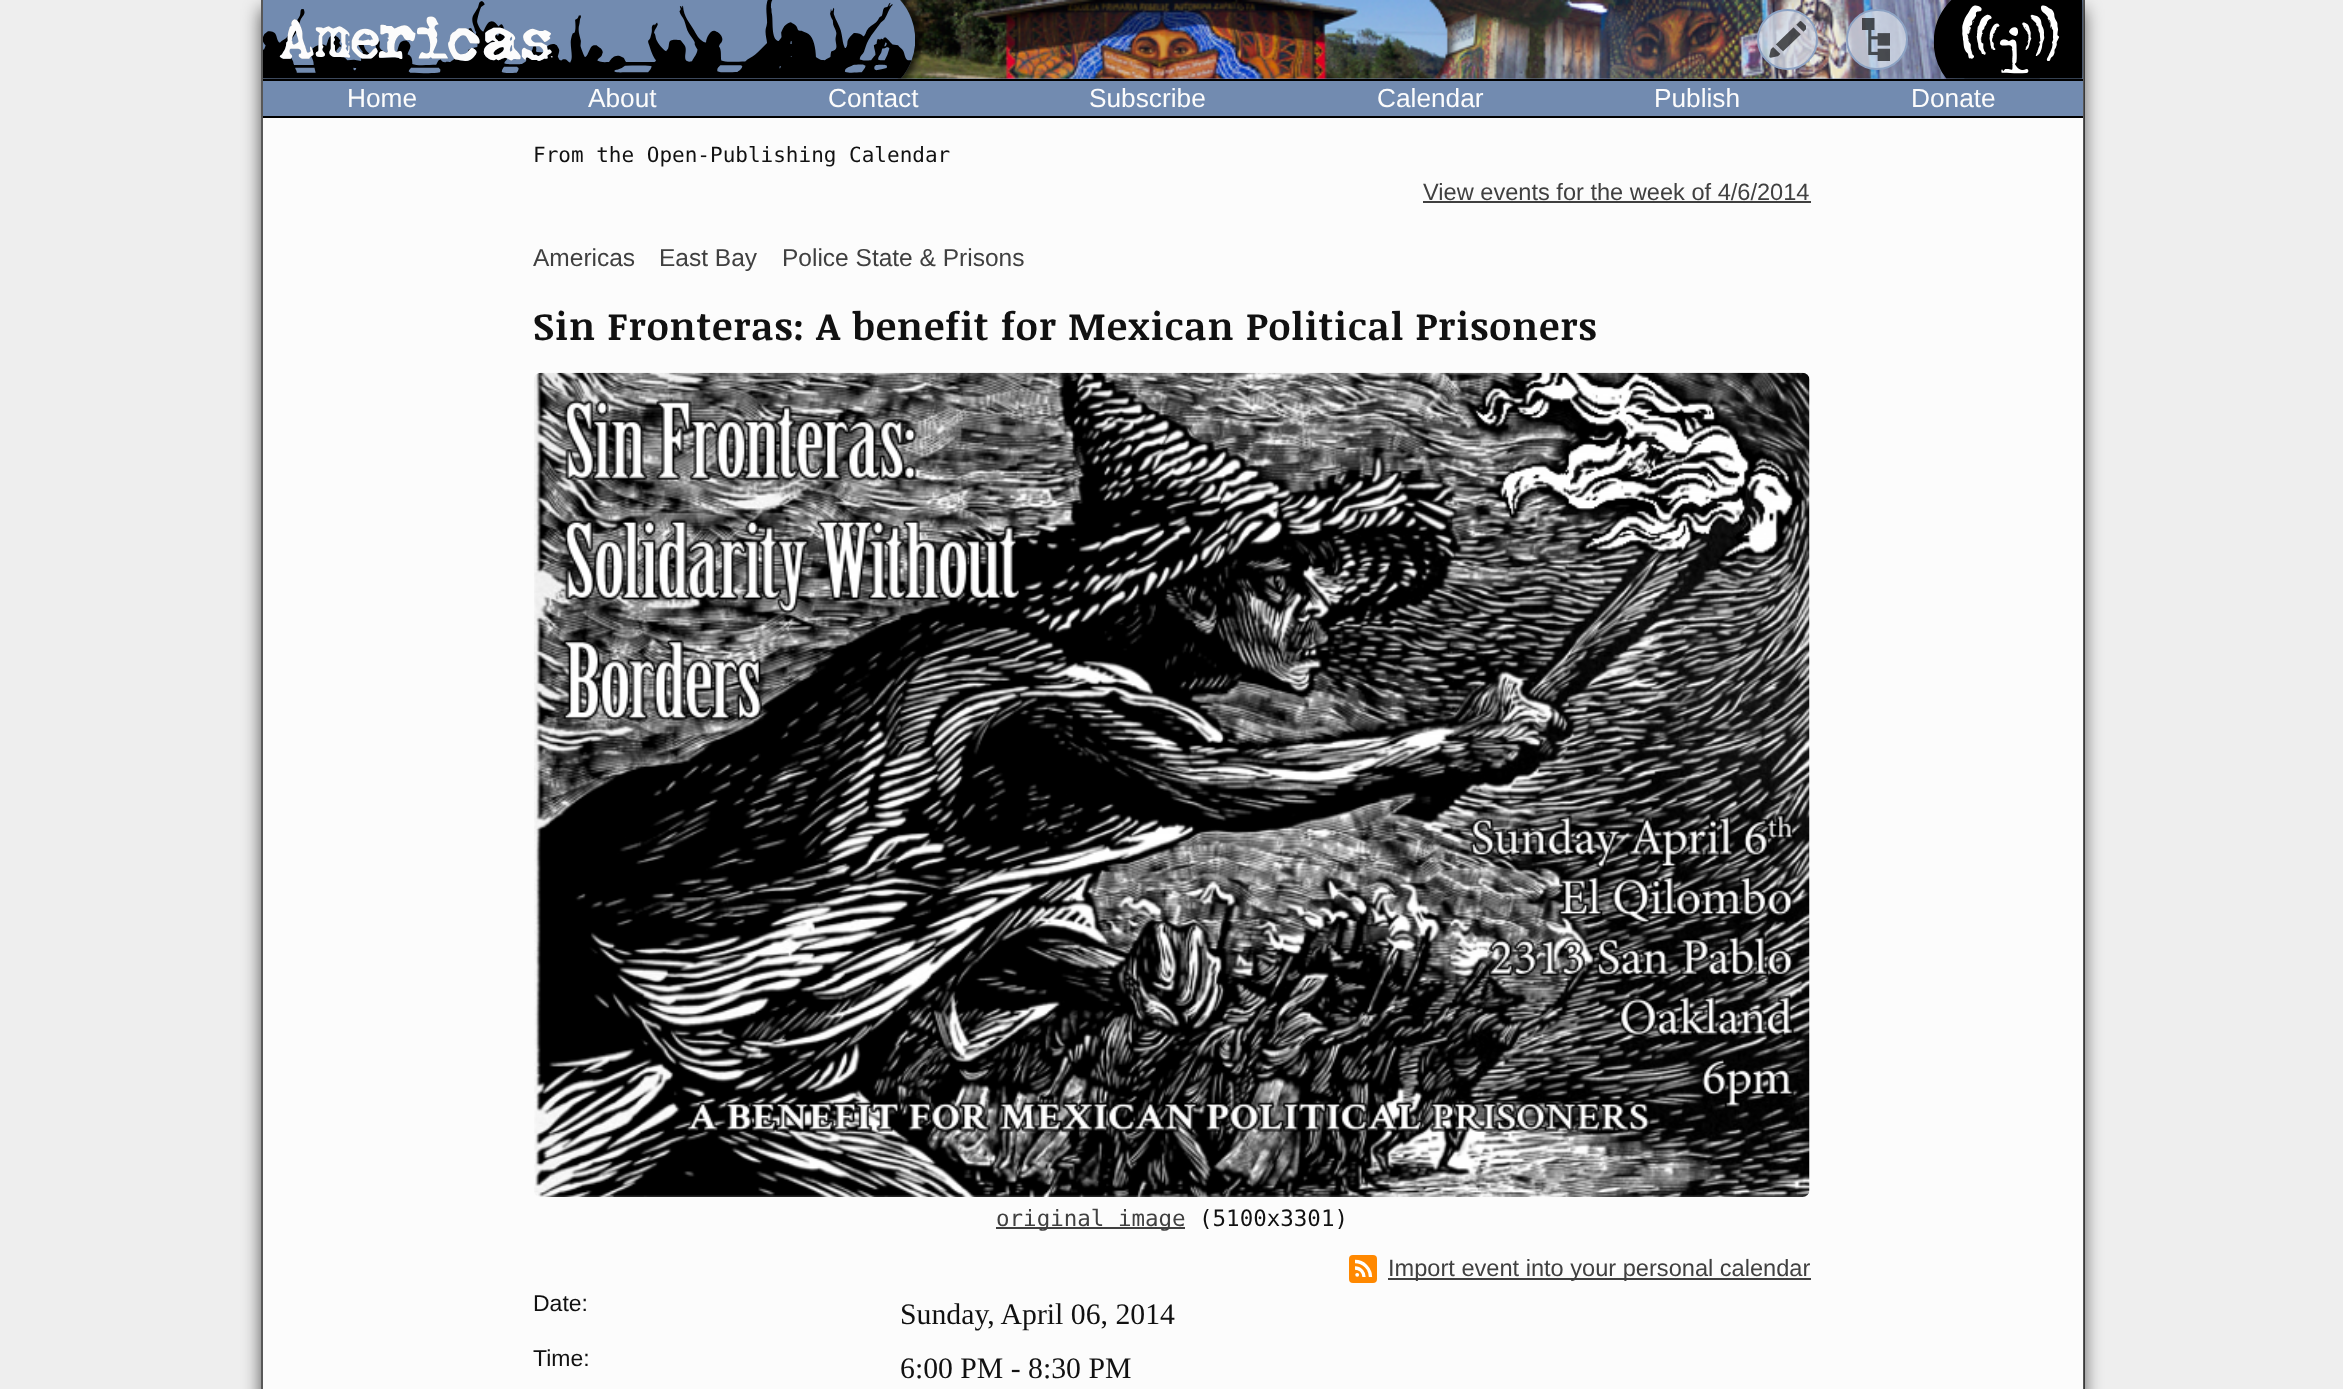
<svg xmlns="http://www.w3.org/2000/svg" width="2343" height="1389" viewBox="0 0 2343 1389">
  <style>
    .t1 { font: 61.5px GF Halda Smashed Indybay; fill: #4e5f78; }
    .t2 { font: 61.5px GF Halda Smashed Indybay; fill: #fcfcfc; }
    .t3 { font: 26.25px Liberation Sans; fill: #fcfcfc; }
    .t4 { font: 21px DejaVu Sans Mono; fill: #111; }
    .t5 { font: 23.6px Liberation Sans; fill: #404040; }
    .t6 { font: 24.5px Liberation Sans; fill: #404040; }
    .t7 { font: bold 38.5px Noticia Text; letter-spacing: 0.88px; fill: #111; }
    .t8 { font: 22.5px DejaVu Sans Mono; fill: #404040; }
    .t9 { font: 22.5px DejaVu Sans Mono; fill: #111; }
    .t10 { font: 23px Liberation Sans; fill: #111; }
    .t11 { font: 29.75px Liberation Serif; fill: #111; }
  </style>
  <rect width="100%" height="100%" fill="#eee"/>
  <rect x="261" y="9" width="1823" height="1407" fill="#000000a6" filter="blur(9px)"/>
  <rect x="263" y="0" width="1821" height="1389" fill="#fcfcfc"/>
  <rect x="2083" y="0" width="2" height="1389" fill="#000000a6"/>
  <rect x="261" y="0" width="2" height="1389" fill="#585858"/>
  <rect x="263" y="0" width="1820" height="79" fill="#728bb0"/>
  <rect x="263" y="79" width="1820" height="2" fill="#000"/>
  <image x="897" y="0" width="1056" height="79" href="images/5.png"/>
  <image x="263" y="0" width="661" height="79" href="images/1.png"/>
  <text x="279" y="61" class="t1">Americas</text>
  <text x="279" y="61" class="t2">Americas</text>
  <circle cx="1787.5" cy="39.5" r="29.5" fill="#d4dce8cc" stroke="#8da3c4" stroke-width="2"/>
  <image x="1769" y="21" width="37" height="37" href="images/2.png"/>
  <rect x="1847" y="10" width="60" height="59" rx="29.5" fill="#d4dce8cc" stroke="#8da3c4" stroke-width="2"/>
  <image x="1862" y="18" width="28" height="43" href="images/3.png"/>
  <image x="1933" y="0" width="150" height="79" href="images/4.png"/>
  <rect x="263" y="81" width="1820" height="35" fill="#728bb0"/>
  <rect x="263" y="116" width="1820" height="2" fill="#000"/>
  <text x="347" y="107" class="t3">Home</text>
  <text x="588" y="107" class="t3">About</text>
  <text x="828" y="107" class="t3">Contact</text>
  <text x="1089" y="107" class="t3">Subscribe</text>
  <text x="1377" y="107" class="t3">Calendar</text>
  <text x="1654" y="107" class="t3">Publish</text>
  <text x="1911" y="107" class="t3">Donate</text>
  <text x="533" y="162" class="t4">From the Open-Publishing Calendar</text>
  <text x="1423" y="200" class="t5">View events for the week of 4/6/2014</text>
  <rect x="1423" y="201" width="388" height="2" fill="#404040"/>
  <text x="533" y="266" class="t6">Americas</text>
  <text x="659" y="266" class="t6">East Bay</text>
  <text x="782" y="266" class="t6">Police State &amp; Prisons</text>
  <text x="533" y="340" class="t7">Sin Fronteras: A benefit for Mexican Political Prisoners</text>
  <image x="534" y="372" width="1276" height="825" href="images/6.png"/>
  <rect x="996" y="1227" width="189" height="2" fill="#404040"/>
  <text x="996" y="1226" class="t8">original image</text>
  <text x="1199" y="1226" class="t9">(5100x3301)</text>
  <rect x="1349" y="1255" width="28" height="28" rx="4" fill="#f80"/>
  <circle cx="1357.2" cy="1274.8" r="1.9" fill="#fff"/>
  <path d="M1355 1268C1360 1268 1364 1272 1364 1277M1370.5 1277C1370.5 1268.5 1363.5 1261.5 1355 1261.5" fill="none" stroke="#fff" stroke-width="3.3"/>
  <rect x="1388" y="1278" width="423" height="2" fill="#404040"/>
  <text x="1388" y="1276" class="t5">Import event into your personal calendar</text>
  <text x="533" y="1311" class="t10">Date:</text>
  <text x="900" y="1324" class="t11">Sunday, April 06, 2014</text>
  <text x="533" y="1366" class="t10">Time:</text>
  <text x="900" y="1378" class="t11">6:00 PM - 8:30 PM</text>
</svg>
